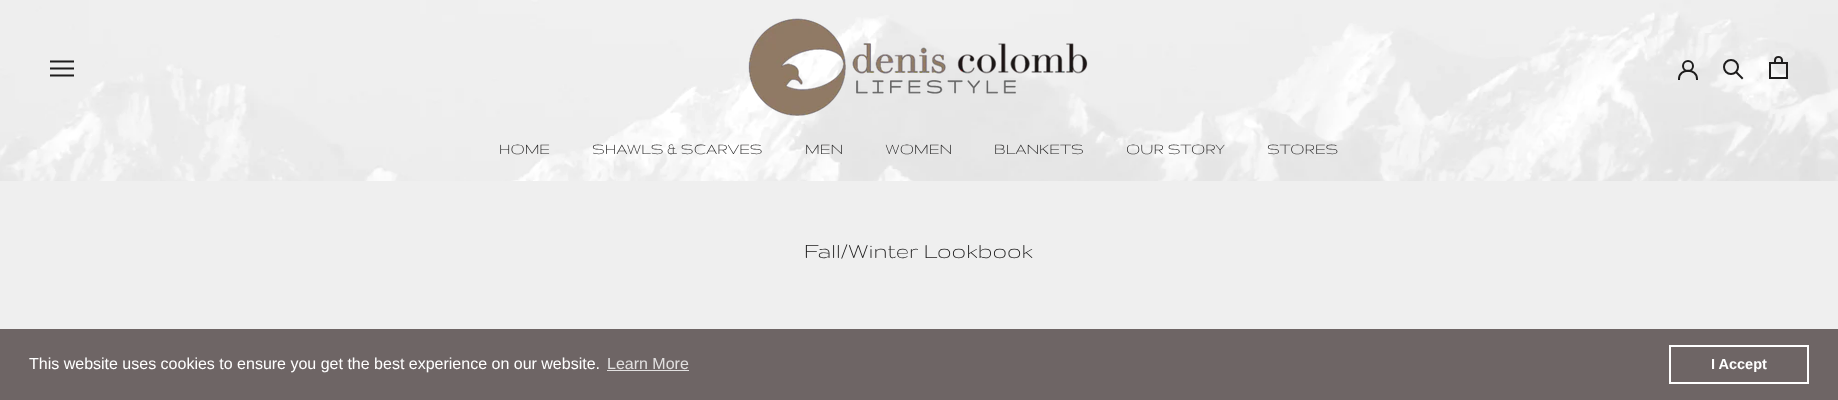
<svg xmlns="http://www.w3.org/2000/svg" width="1838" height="400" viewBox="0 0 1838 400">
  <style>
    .t1 { font: 17px Gruppo; fill: #1c1b1b; }
    .t2 { font: 24px Gruppo; fill: #1c1b1b; }
    .t3 { font: 16px Liberation Sans; fill: #fff; }
    .t4 { font: 16px Liberation Sans; fill: #e2e0e0; }
    .t5 { font: bold 14.5px Liberation Sans; fill: #fff; }
  </style>
  <rect width="100%" height="100%" fill="#efefef"/>
  <image x="0" y="0" width="1838" height="181" href="images/1.png"/>
  <image x="748" y="18" width="340" height="98" href="images/2.png"/>
  <path d="M1679 79C1679 68 1697 68 1697 79" fill="none" stroke="#1d1c1c" stroke-width="2" stroke-linecap="square"/>
  <circle cx="1688" cy="66" r="5" fill="none" stroke="#1d1c1c" stroke-width="2"/>
  <path d="M1742 78L1736.5 72.5" fill="none" stroke="#1d1c1c" stroke-width="2" stroke-linecap="square"/>
  <circle cx="1731" cy="67" r="7" fill="none" stroke="#1d1c1c" stroke-width="2"/>
  <image x="1769" y="56" width="19" height="23" href="images/3.png"/>
  <image x="50" y="60" width="24" height="17" href="images/4.png"/>
  <text x="499" y="154" class="t1">HOME</text>
  <text x="592" y="154" class="t1">SHAWLS &amp; SCARVES</text>
  <text x="805" y="154" class="t1">MEN</text>
  <text x="885" y="154" class="t1">WOMEN</text>
  <text x="994" y="154" class="t1">BLANKETS</text>
  <text x="1126" y="154" class="t1">OUR STORY</text>
  <text x="1267" y="154" class="t1">STORES</text>
  <text x="804" y="258" class="t2">Fall/Winter Lookbook</text>
  <rect x="0" y="329" width="1838" height="71" fill="#6e6565"/>
  <text x="29" y="369" class="t3">This website uses cookies to ensure you get the best experience on our website.</text>
  <text x="607" y="369" class="t4">Learn More</text>
  <rect x="607" y="370" width="82" height="1" fill="#e2e0e0"/>
  <rect x="1670" y="346" width="138" height="37" fill="none" stroke="#fff" stroke-width="2"/>
  <text x="1711" y="369" class="t5">I Accept</text>
</svg>
